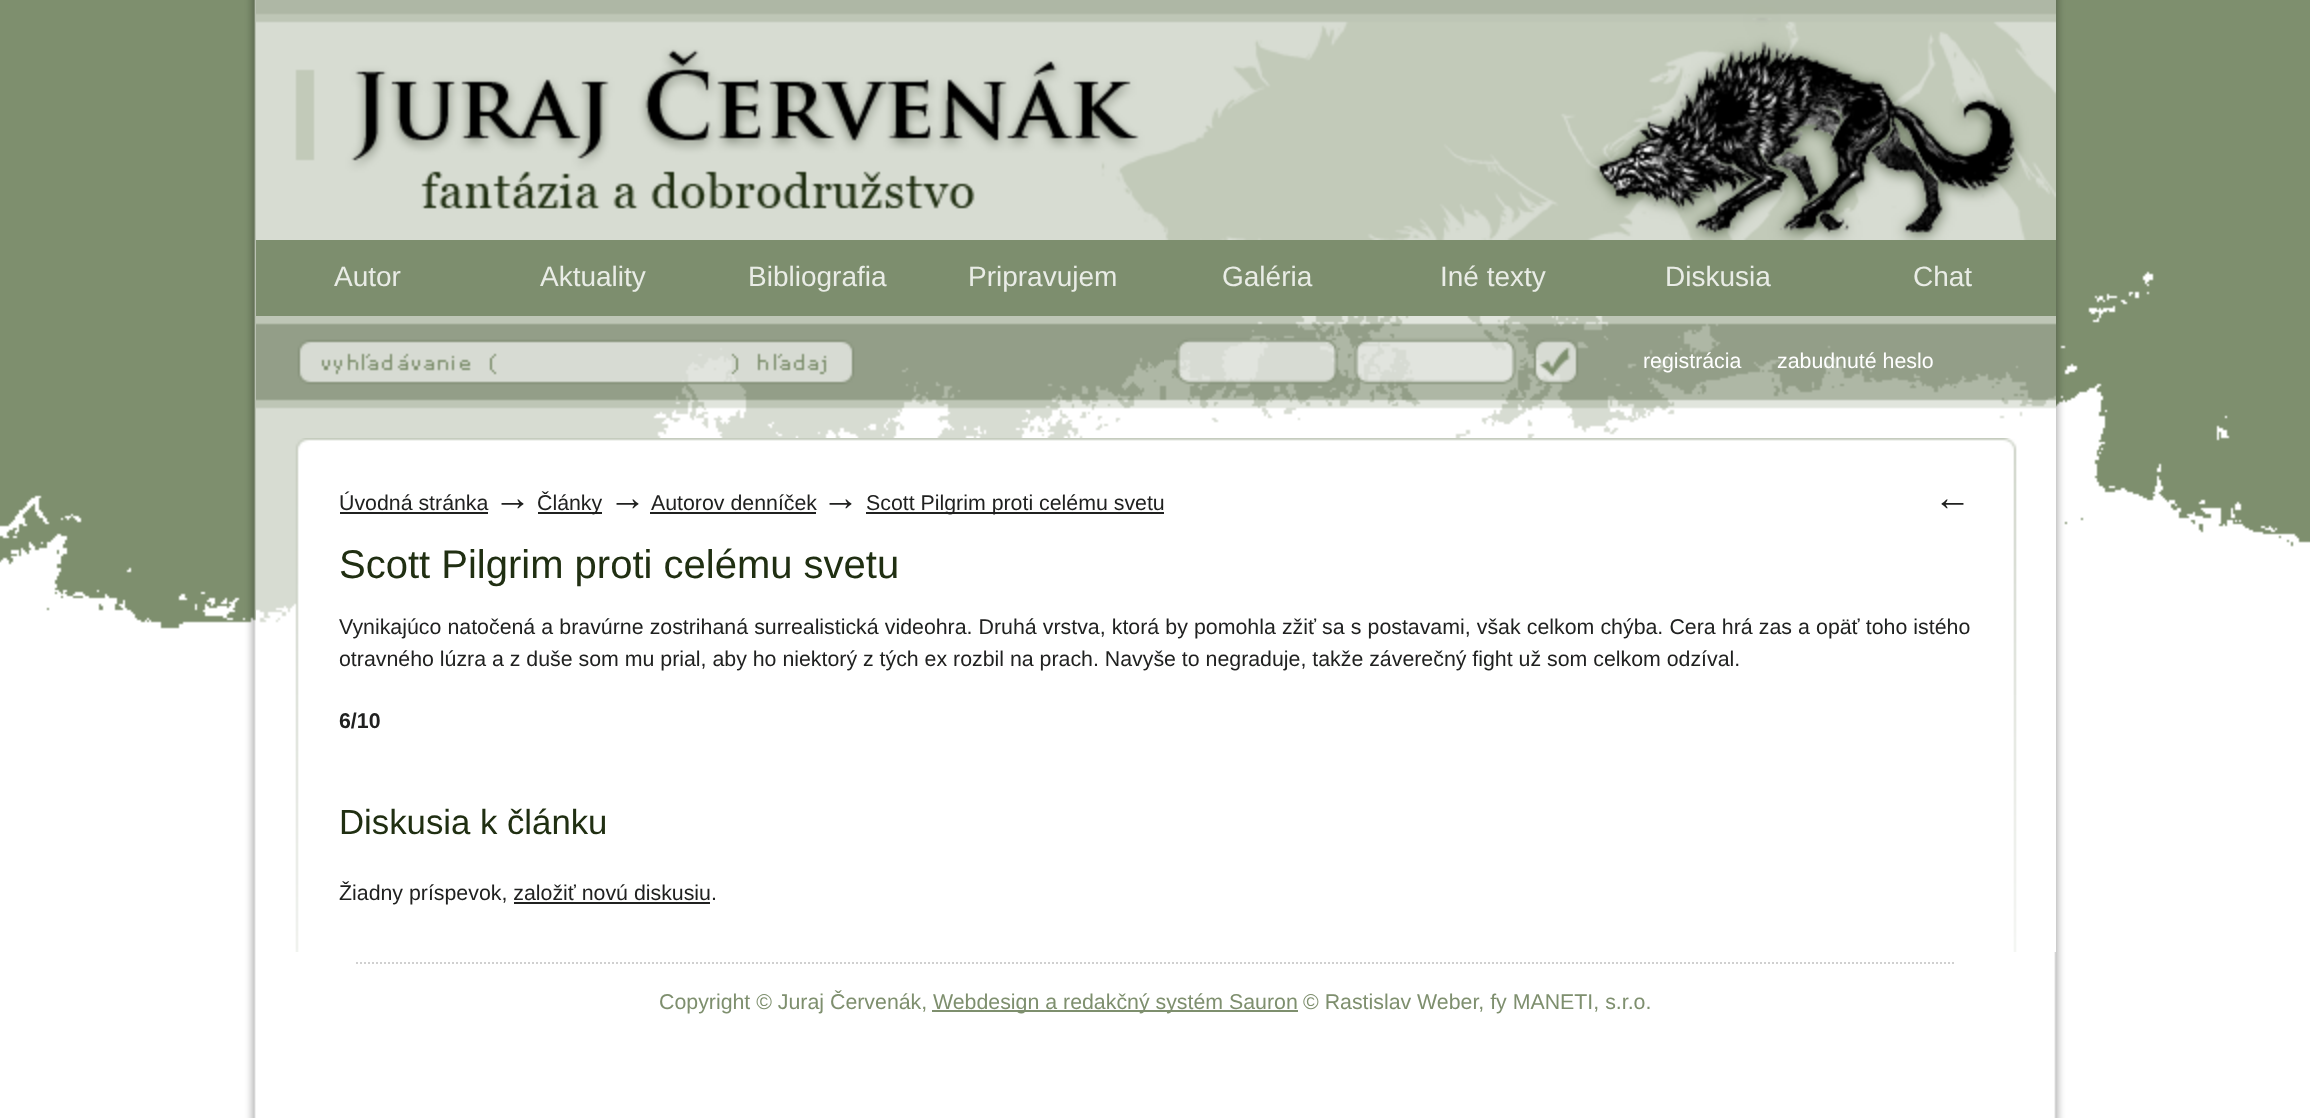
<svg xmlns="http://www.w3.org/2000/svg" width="2310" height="1118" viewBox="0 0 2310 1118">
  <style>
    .t1 { font: 28px Liberation Sans; fill: #e9ece6; }
    .t2 { font: 21.33px Liberation Sans; fill: #fff; }
    .t3 { font: 21.33px Liberation Sans; fill: #202120; }
    .t4 { font: 37px Liberation Serif; fill: #202120; }
    .t5 { font: 40px Liberation Sans; fill: #202f12; }
    .t6 { font: bold 21.33px Liberation Sans; fill: #202120; }
    .t7 { font: 34.75px Liberation Sans; fill: #202f12; }
    .t8 { font: 21.33px Liberation Sans; fill: #7e8f6e; }
  </style>
  <rect width="100%" height="100%" fill="#fff"/>
  <image x="0" y="0" width="2310" height="1118" href="images/1.png"/>
  <image x="256" y="0" width="1800" height="240" href="images/2.png"/>
  <rect x="256" y="240" width="1800" height="76" fill="#7d8e6e"/>
  <text x="334" y="286" class="t1">Autor</text>
  <text x="540" y="286" class="t1">Aktuality</text>
  <text x="748" y="286" class="t1">Bibliografia</text>
  <text x="968" y="286" class="t1">Pripravujem</text>
  <text x="1222" y="286" class="t1">Galéria</text>
  <text x="1440" y="286" class="t1">Iné texty</text>
  <text x="1665" y="286" class="t1">Diskusia</text>
  <text x="1913" y="286" class="t1">Chat</text>
  <image x="256" y="316" width="908" height="122" href="images/3.png"/>
  <image x="1164" y="316" width="892" height="122" href="images/4.png"/>
  <text x="1643" y="368" class="t2">registrácia</text>
  <text x="1777" y="368" class="t2">zabudnuté heslo</text>
  <image x="256" y="438" width="1800" height="514" href="images/5.png"/>
  <text x="339" y="510" class="t3">Úvodná stránka</text>
  <rect x="340" y="512" width="148" height="2" fill="#202120"/>
  <text x="494" y="510" class="t4">→</text>
  <rect x="538" y="512" width="64" height="2" fill="#202120"/>
  <text x="537" y="510" class="t3">Články</text>
  <text x="609" y="510" class="t4">→</text>
  <text x="651" y="510" class="t3">Autorov denníček</text>
  <rect x="650" y="512" width="166" height="2" fill="#202120"/>
  <text x="822" y="510" class="t4">→</text>
  <rect x="866" y="512" width="298" height="2" fill="#202120"/>
  <text x="866" y="510" class="t3">Scott Pilgrim proti celému svetu</text>
  <text x="1934" y="510" class="t4">←</text>
  <text x="339" y="578" class="t5">Scott Pilgrim proti celému svetu</text>
  <text x="339" y="634" word-spacing="0.2" class="t3">Vynikajúco natočená a bravúrne zostrihaná surrealistická videohra. Druhá vrstva, ktorá by pomohla zžiť sa s postavami, však celkom chýba. Cera hrá zas a opäť toho istého</text>
  <text x="339" y="666" class="t3">otravného lúzra a z duše som mu prial, aby ho niektorý z tých ex rozbil na prach. Navyše to negraduje, takže záverečný fight už som celkom odzíval.</text>
  <text x="339" y="728" class="t6">6/10</text>
  <text x="339" y="834" class="t7">Diskusia k článku</text>
  <text x="339" y="900" class="t3">Žiadny príspevok, založiť novú diskusiu.</text>
  <rect x="514" y="902" width="196" height="2" fill="#202120"/>
  <path d="M356 963H1956" fill="none" stroke="#d0d0d0" stroke-width="2" stroke-dasharray="2 2"/>
  <text x="659" y="1009" class="t8">Copyright © Juraj Červenák,</text>
  <rect x="932" y="1010" width="366" height="2" fill="#7e8f6e"/>
  <text x="933" y="1009" class="t8">Webdesign a redakčný systém Sauron</text>
  <text x="1303" y="1009" class="t8">© Rastislav Weber, fy MANETI, s.r.o.</text>
</svg>
